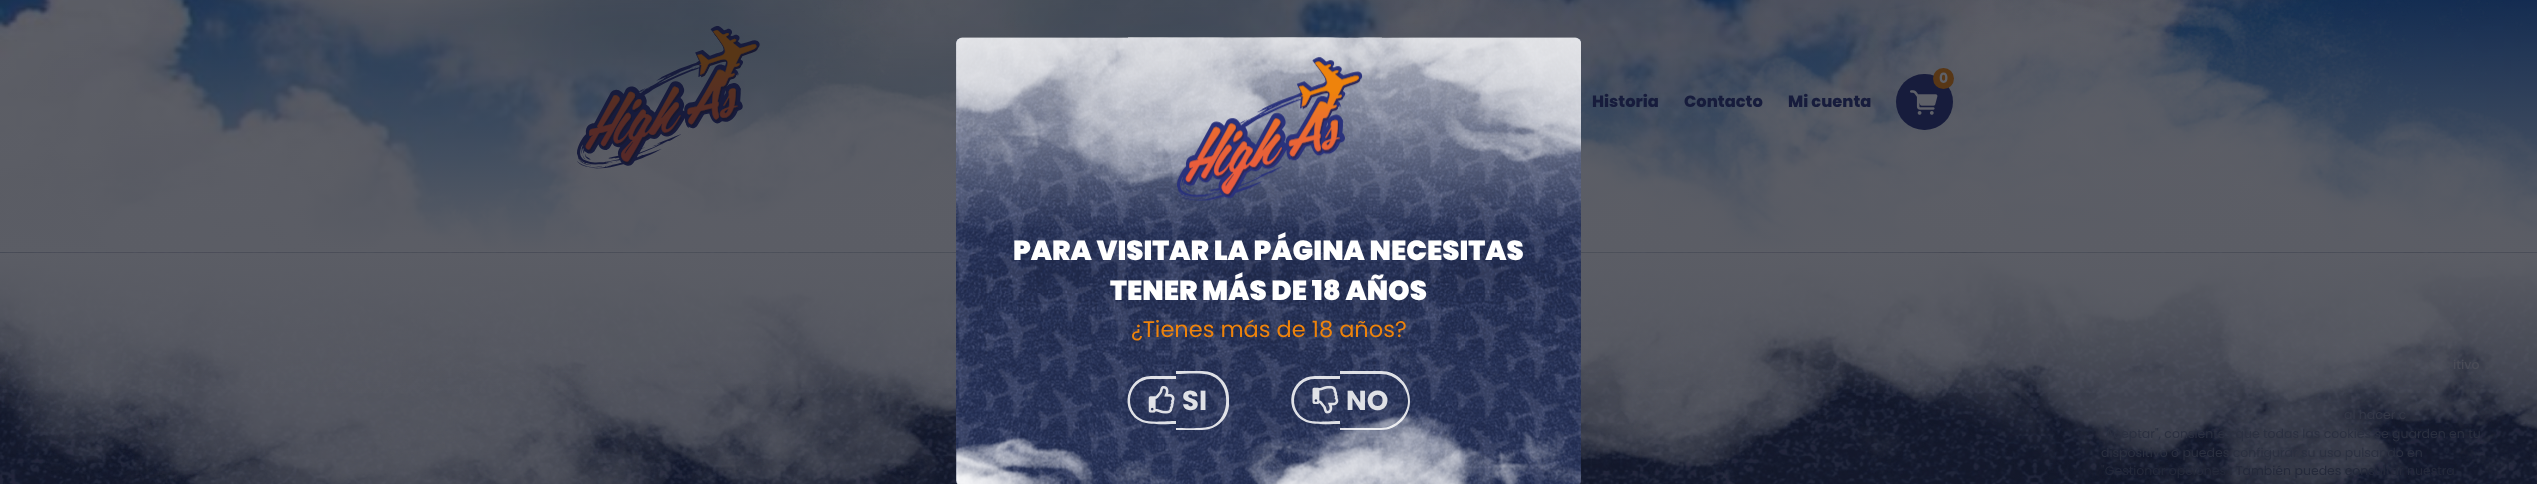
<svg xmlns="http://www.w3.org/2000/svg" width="2537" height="484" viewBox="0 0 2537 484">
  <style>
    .t1 { font: bold 14px Poppins; fill: #5e6068; }
    .t2 { font: 800 16.25px Poppins; fill: #171c3c; }
    .t3 { font: 900 27.5px Poppins; fill: #fff; }
    .t4 { font: 22.5px Poppins; fill: #ee830b; }
    .t5 { font: bold 27.5px Poppins; fill: #dfe1e6; }
    .t6 { font: 500 12.5px Poppins; fill: #4a4c57; }
    .t7 { font: 12.5px Poppins; fill: #353948; }
    .t8 { font: 12.5px Poppins; fill: #2b3040; }
    .t9 { font: 12.5px Poppins; fill: #24293a; }
  </style>
  <defs>
    <linearGradient id="g1" gradientUnits="userSpaceOnUse" x1="1269" y1="253" x2="1269" y2="-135"><stop offset="0" stop-color="#5b5d65"/><stop offset="0.75" stop-color="#5b5d65" stop-opacity="0"/></linearGradient>
    <linearGradient id="g2" gradientUnits="userSpaceOnUse" x1="1269" y1="251" x2="1269" y2="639"><stop offset="0" stop-color="#5b5d65"/><stop offset="0.38" stop-color="#5b5d65" stop-opacity="0"/></linearGradient>
    <linearGradient id="g3" gradientUnits="userSpaceOnUse" x1="1269" y1="-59" x2="1269" y2="329"><stop offset="0" stop-color="#f5f5f5"/><stop offset="0.75" stop-color="#f5f5f5" stop-opacity="0"/></linearGradient>
  </defs>
  <rect width="100%" height="100%" fill="#fff"/>
  <image x="0" y="0" width="2537" height="251" href="images/1.png"/>
  <image x="44" y="0" width="2493" height="251" href="images/2.png"/>
  <rect x="0" y="0" width="2537" height="253" fill="url(#g1)"/>
  <image x="577" y="26" width="183" height="143" href="images/3.png"/>
  <rect x="1896" y="74" width="57" height="56" rx="28" fill="#171c3c"/>
  <circle cx="1943.5" cy="78.5" r="10.5" fill="#583716"/>
  <text x="1939" y="83" class="t1">0</text>
  <image x="1910" y="90" width="28" height="25" href="images/4.png"/>
  <text x="1592" y="107" class="t2">Historia</text>
  <text x="1684" y="107" class="t2">Contacto</text>
  <text x="1788" y="107" class="t2">Mi cuenta</text>
  <image x="0" y="252" width="2537" height="232" href="images/11.png"/>
  <image x="0" y="252" width="2537" height="232" href="images/12.png"/>
  <image x="0" y="252" width="2537" height="232" href="images/13.png"/>
  <rect x="0" y="253" width="2537" height="140" fill="url(#g2)"/>
  <image x="956" y="38" width="625" height="446" href="images/5.png"/>
  <image x="956" y="37" width="625" height="211" href="images/6.png"/>
  <path d="M962 38H1575C1578.5 38 1581 40.5 1581 44V329H956V44C956 40.5 958.5 38 962 38Z" fill="url(#g3)"/>
  <image x="1177" y="57" width="186" height="144" href="images/7.png"/>
  <text x="1013" y="260" class="t3">PARA VISITAR LA PÁGINA NECESITAS</text>
  <text x="1110" y="300" class="t3">TENER MÁS DE 18 AÑOS</text>
  <text x="1131" y="337" class="t4">¿Tienes más de 18 años?</text>
  <image x="956" y="344" width="625" height="140" href="images/10.png"/>
  <path d="M1151 376H1176V424C1167 424 1150 425 1142 422C1118 412 1126 376 1151 376ZM1151 379H1176V421C1168 421 1150 423 1143 420C1122 411 1128 379 1151 379Z" fill="#ffffffd9" fill-rule="evenodd"/>
  <path d="M1176 371H1202C1217 371 1229 383 1229 398V404C1229 418 1217 430 1202 430H1176ZM1176 374C1185 374 1204 372 1212 376C1231 384 1231 417 1212 426C1204 429 1185 428 1176 428Z" fill="#ffffffd9" fill-rule="evenodd"/>
  <image x="1148" y="385" width="27" height="29" href="images/8.png"/>
  <text x="1182" y="410" class="t5">SI</text>
  <path d="M1315 376H1340V424C1331 424 1314 425 1306 422C1282 412 1289 376 1315 376ZM1315 379H1340V421C1332 421 1314 423 1307 420C1286 411 1292 379 1315 379Z" fill="#ffffffd9" fill-rule="evenodd"/>
  <path d="M1340 371H1381C1397 371 1410 384 1410 401C1410 417 1397 430 1381 430H1340ZM1340 374H1381C1395 374 1408 386 1408 401C1408 415 1395 428 1381 428H1340Z" fill="#ffffffd9" fill-rule="evenodd"/>
  <image x="1312" y="385" width="27" height="29" href="images/9.png"/>
  <text x="1346" y="410" class="t5">NO</text>
  <text x="2453" y="369" class="t6">itivo</text>
  <text x="2344" y="419" class="t7">al hacer c</text>
  <text x="2105" y="438" class="t8">Aceptar", consientes que todas las cookies se guarden en tu</text>
  <text x="2101" y="457" class="t8">dispositivo o puedes configurar su uso pulsando en</text>
  <text x="2101" y="475" class="t9">"Gestionar opciones". También puedes consultar nuestra</text>
</svg>
